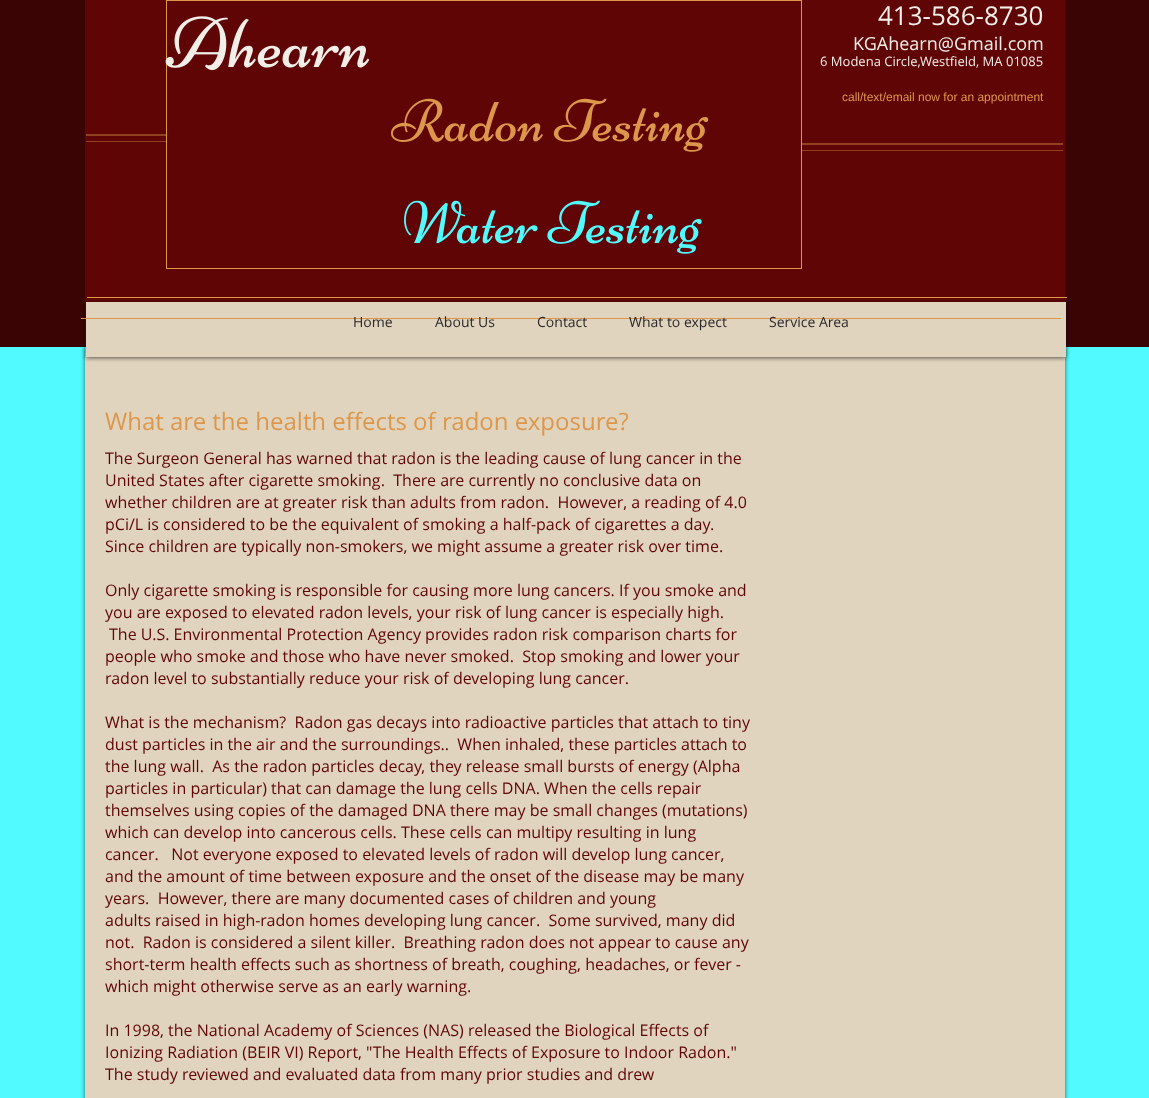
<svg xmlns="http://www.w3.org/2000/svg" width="1149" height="1098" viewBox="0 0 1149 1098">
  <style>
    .t1 { font: 26px Open Sans; fill: #f2efe9; }
    .t2 { font: 18px Open Sans; fill: #f2efe9; }
    .t3 { font: 13px Open Sans; fill: #f2efe9; }
    .t4 { font: 12px Liberation Sans; fill: #dd974b; }
    .t5 { font: 14px Open Sans; fill: #2b272a; }
    .t6 { font: 24px Open Sans; fill: #dd974b; }
    .t7 { font: 16px Open Sans; fill: #600505; }
  </style>
  <rect width="100%" height="100%" fill="#50fafe"/>
  <rect x="85" y="348" width="980" height="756" fill="#00000099" filter="blur(2px)"/>
  <rect x="0" y="0" width="1149" height="347" fill="#3a0404"/>
  <rect x="85" y="0" width="980" height="347" fill="#600505"/>
  <rect x="166.5" y="0.5" width="635" height="268" fill="none" stroke="#dd974b"/>
  <image x="165" y="16" width="205" height="55" href="images/1.png"/>
  <image x="391" y="98" width="318" height="54" href="images/2.png"/>
  <image x="404" y="200" width="298" height="54" href="images/3.png"/>
  <text x="878" y="25" class="t1">413-586-8730</text>
  <text x="853" y="50" class="t2">KGAhearn@Gmail.com</text>
  <text x="820" y="66" class="t3">6 Modena Circle,Westfield, MA 01085</text>
  <text x="842" y="101" class="t4">call/text/email now for an appointment</text>
  <rect x="86" y="134" width="80" height="2" fill="#8f4120"/>
  <rect x="86" y="141" width="80" height="1" fill="#8f4120"/>
  <rect x="802" y="143" width="261" height="2" fill="#8f4120"/>
  <rect x="802" y="150" width="261" height="1" fill="#8f4120"/>
  <rect x="87" y="297" width="980" height="1" fill="#dd974b"/>
  <rect x="85" y="347" width="980" height="751" fill="#e0d4be"/>
  <rect x="86" y="303" width="980" height="55" fill="#00000099" filter="blur(2px)"/>
  <rect x="86" y="302" width="980" height="55" fill="#e0d4be"/>
  <rect x="81" y="318" width="980" height="1" fill="#dd974b"/>
  <text x="353" y="327" class="t5">Home</text>
  <text x="435" y="327" class="t5">About Us</text>
  <text x="537" y="327" class="t5">Contact</text>
  <text x="629" y="327" class="t5">What to expect</text>
  <text x="769" y="327" class="t5">Service Area</text>
  <text x="105" y="430" class="t6">What are the health effects of radon exposure?</text>
  <text x="105" y="464" class="t7">The Surgeon General has warned that radon is the leading cause of lung cancer in the</text>
  <text x="105" y="486" class="t7" xml:space="preserve">United States after cigarette smoking.  There are currently no conclusive data on</text>
  <text x="105" y="508" class="t7" xml:space="preserve">whether children are at greater risk than adults from radon.  However, a reading of 4.0</text>
  <text x="105" y="530" class="t7">pCi/L is considered to be the equivalent of smoking a half-pack of cigarettes a day.</text>
  <text x="105" y="552" class="t7">Since children are typically non-smokers, we might assume a greater risk over time.</text>
  <text x="105" y="596" class="t7">Only cigarette smoking is responsible for causing more lung cancers. If you smoke and</text>
  <text x="105" y="618" class="t7">you are exposed to elevated radon levels, your risk of lung cancer is especially high.</text>
  <text x="109" y="640" class="t7">The U.S. Environmental Protection Agency provides radon risk comparison charts for</text>
  <text x="105" y="662" class="t7" xml:space="preserve">people who smoke and those who have never smoked.  Stop smoking and lower your</text>
  <text x="105" y="684" class="t7">radon level to substantially reduce your risk of developing lung cancer.</text>
  <text x="105" y="728" class="t7" xml:space="preserve">What is the mechanism?  Radon gas decays into radioactive particles that attach to tiny</text>
  <text x="105" y="750" class="t7" xml:space="preserve">dust particles in the air and the surroundings..  When inhaled, these particles attach to</text>
  <text x="105" y="772" class="t7" xml:space="preserve">the lung wall.  As the radon particles decay, they release small bursts of energy (Alpha</text>
  <text x="105" y="794" class="t7">particles in particular) that can damage the lung cells DNA. When the cells repair</text>
  <text x="105" y="816" class="t7">themselves using copies of the damaged DNA there may be small changes (mutations)</text>
  <text x="105" y="838" class="t7">which can develop into cancerous cells. These cells can multipy resulting in lung</text>
  <text x="105" y="860" class="t7" xml:space="preserve">cancer.   Not everyone exposed to elevated levels of radon will develop lung cancer,</text>
  <text x="105" y="882" class="t7">and the amount of time between exposure and the onset of the disease may be many</text>
  <text x="105" y="904" class="t7" xml:space="preserve">years.  However, there are many documented cases of children and young</text>
  <text x="105" y="926" class="t7" xml:space="preserve">adults raised in high-radon homes developing lung cancer.  Some survived, many did</text>
  <text x="105" y="948" class="t7" xml:space="preserve">not.  Radon is considered a silent killer.  Breathing radon does not appear to cause any</text>
  <text x="105" y="970" class="t7">short-term health effects such as shortness of breath, coughing, headaches, or fever -</text>
  <text x="105" y="992" class="t7">which might otherwise serve as an early warning.</text>
  <text x="105" y="1036" class="t7">In 1998, the National Academy of Sciences (NAS) released the Biological Effects of</text>
  <text x="105" y="1058" class="t7">Ionizing Radiation (BEIR VI) Report, "The Health Effects of Exposure to Indoor Radon."</text>
  <text x="105" y="1080" class="t7">The study reviewed and evaluated data from many prior studies and drew</text>
</svg>
